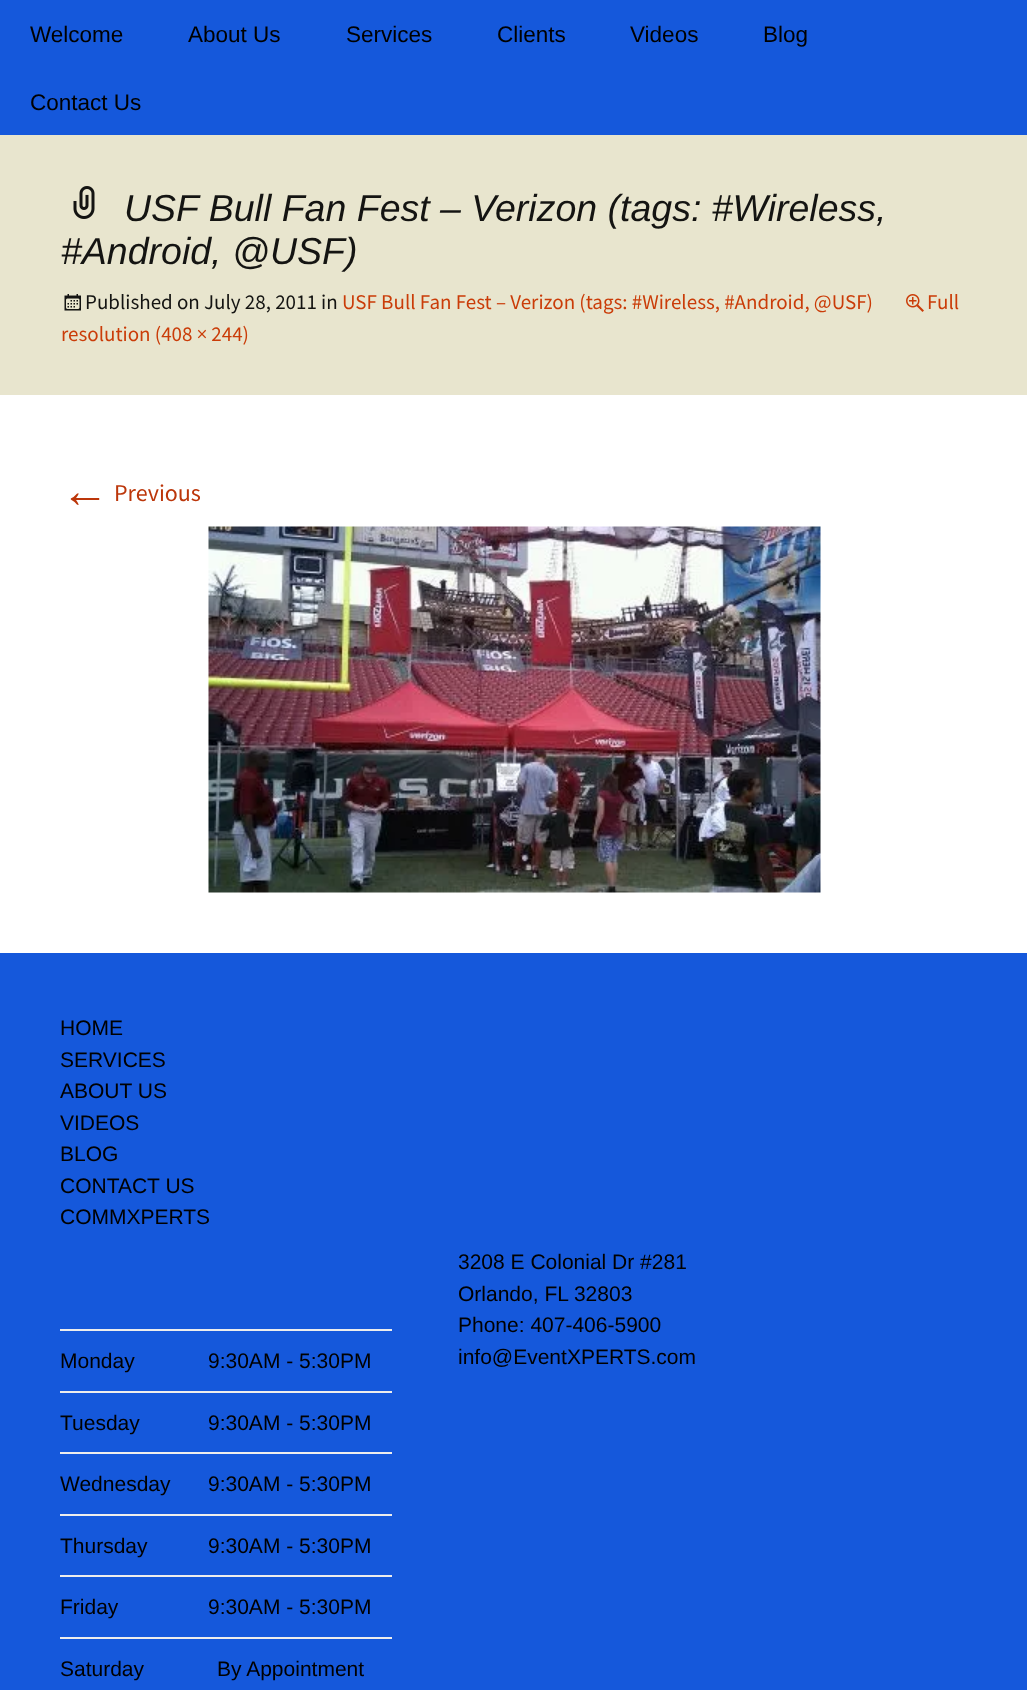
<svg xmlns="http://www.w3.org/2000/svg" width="1027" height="1690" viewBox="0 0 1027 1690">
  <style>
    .t1 { font: 22.5px Liberation Sans; fill: #000; }
    .t2 { font: italic 37.5px Liberation Sans; fill: #141412; }
    .t3 { font: 21px Source Sans Pro; fill: #141412; }
    .t4 { font: 21px Source Sans Pro; fill: #ca3c08; }
    .t5 { font: 48px Liberation Sans; fill: #bc360a; }
    .t6 { font: 24px Source Sans Pro; fill: #bc360a; }
    .t7 { font: 21px Liberation Sans; fill: #000; }
  </style>
  <rect width="100%" height="100%" fill="#1558db"/>
  <text x="30" y="42" class="t1">Welcome</text>
  <text x="188" y="42" class="t1">About Us</text>
  <text x="346" y="42" class="t1">Services</text>
  <text x="497" y="42" class="t1">Clients</text>
  <text x="630" y="42" class="t1">Videos</text>
  <text x="763" y="42" class="t1">Blog</text>
  <text x="30" y="110" class="t1">Contact Us</text>
  <rect x="0" y="135" width="1027" height="260" fill="#e8e5ce"/>
  <image x="73" y="186" width="22" height="33" href="images/1.png"/>
  <text x="124" y="221" class="t2">USF Bull Fan Fest – Verizon (tags: #Wireless,</text>
  <text x="61" y="264" class="t2">#Android, @USF)</text>
  <image x="64" y="294" width="17" height="17" href="images/2.png"/>
  <text x="85" y="309" class="t3">Published on July 28, 2011 in</text>
  <text x="342" y="309" class="t4">USF Bull Fan Fest – Verizon (tags: #Wireless, #Android, @USF)</text>
  <image x="906" y="294" width="18" height="18" href="images/3.png"/>
  <text x="927" y="309" class="t4">Full</text>
  <text x="61" y="341" class="t4">resolution (408 × 244)</text>
  <rect x="0" y="395" width="1027" height="558" fill="#fff"/>
  <text x="61" y="507" class="t5">←</text>
  <text x="114" y="501" class="t6">Previous</text>
  <image x="208" y="526" width="613" height="367" href="images/4.png"/>
  <text x="60" y="1035" class="t7">HOME</text>
  <text x="60" y="1067" class="t7">SERVICES</text>
  <text x="60" y="1098" class="t7">ABOUT US</text>
  <text x="60" y="1130" class="t7">VIDEOS</text>
  <text x="60" y="1161" class="t7">BLOG</text>
  <text x="60" y="1193" class="t7">CONTACT US</text>
  <text x="60" y="1224" class="t7">COMMXPERTS</text>
  <text x="458" y="1269" class="t7">3208 E Colonial Dr #281</text>
  <text x="458" y="1301" class="t7">Orlando, FL 32803</text>
  <text x="458" y="1332" class="t7">Phone: 407-406-5900</text>
  <text x="458" y="1364" class="t7">info@EventXPERTS.com</text>
  <text x="60" y="1368" class="t7">Monday</text>
  <rect x="60" y="1329" width="332" height="2" fill="#ededed"/>
  <text x="208" y="1368" class="t7">9:30AM - 5:30PM</text>
  <text x="60" y="1430" class="t7">Tuesday</text>
  <rect x="60" y="1391" width="332" height="2" fill="#ededed"/>
  <text x="208" y="1430" class="t7">9:30AM - 5:30PM</text>
  <text x="60" y="1491" class="t7">Wednesday</text>
  <rect x="60" y="1452" width="332" height="2" fill="#ededed"/>
  <text x="208" y="1491" class="t7">9:30AM - 5:30PM</text>
  <text x="60" y="1553" class="t7">Thursday</text>
  <rect x="60" y="1514" width="332" height="2" fill="#ededed"/>
  <text x="208" y="1553" class="t7">9:30AM - 5:30PM</text>
  <text x="60" y="1614" class="t7">Friday</text>
  <rect x="60" y="1575" width="332" height="2" fill="#ededed"/>
  <text x="208" y="1614" class="t7">9:30AM - 5:30PM</text>
  <text x="60" y="1676" class="t7">Saturday</text>
  <rect x="60" y="1637" width="332" height="2" fill="#ededed"/>
  <text x="217" y="1676" class="t7">By Appointment</text>
</svg>
